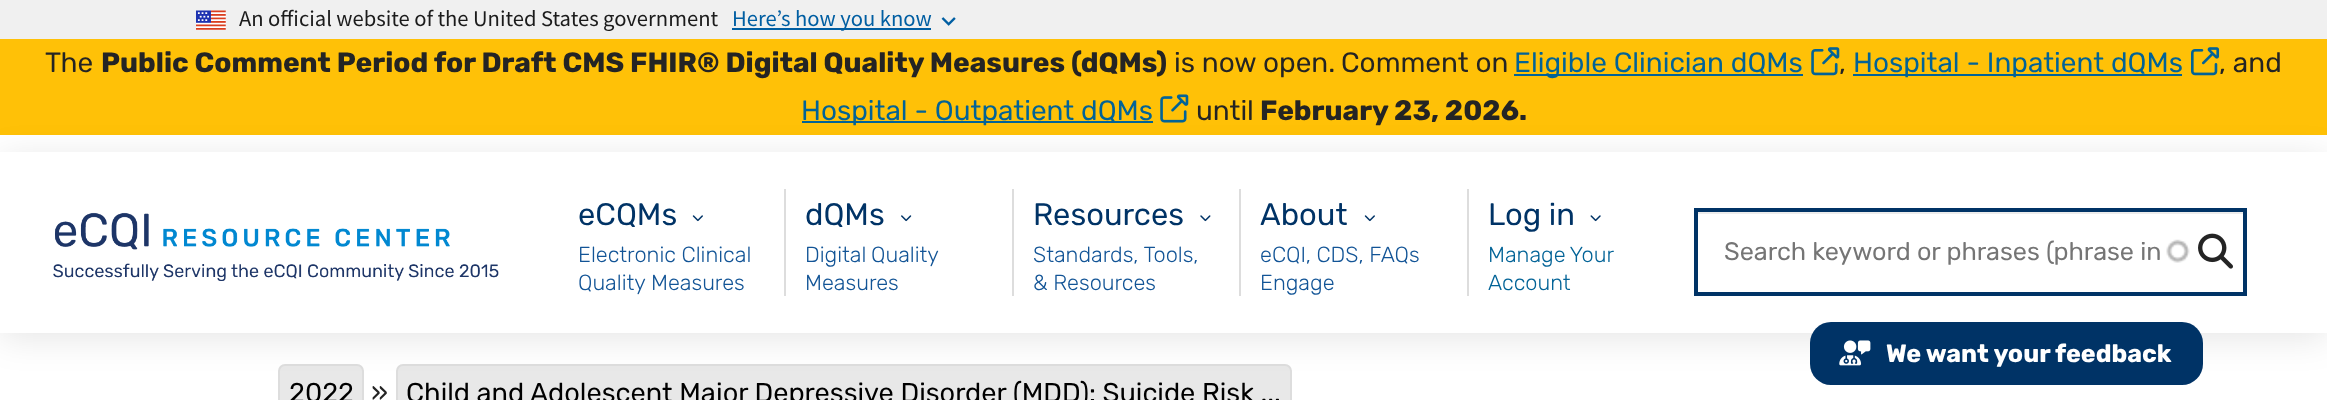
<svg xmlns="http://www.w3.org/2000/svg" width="2327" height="400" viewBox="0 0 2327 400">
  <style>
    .t1 { font: 22.6px Source Sans Pro; fill: #1b1b1b; }
    .t2 { font: 22.6px Source Sans Pro; fill: #005ea2; }
    .t3 { font: 28px Rubik; fill: #242424; }
    .t4 { font: bold 28px Rubik; fill: #242424; }
    .t5 { font: 28px Rubik; fill: #026397; }
    .t6 { font: 31px Rubik; fill: #036; }
    .t7 { font: 300 21.75px Rubik; fill: #125496; }
    .t8 { font: 300 21.75px Rubik; fill: #026397; }
    .t9 { font: 25.25px Rubik; fill: #757575; }
    .t10 { font: bold 24.9px Rubik; fill: #fff; }
    .t11 { font: 27.25px Rubik; fill: #000; }
  </style>
  <defs>
    <clipPath id="clip1"><path d="M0 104H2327V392H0ZM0 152H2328V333H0Z" clip-rule="evenodd"/></clipPath>
  </defs>
  <rect width="100%" height="100%" fill="#fff"/>
  <rect x="0" y="0" width="2327" height="39" fill="#f0f0f0"/>
  <image x="196" y="10" width="30" height="20" href="images/1.png"/>
  <text x="239" y="26" word-spacing="-0.1" class="t1">An official website of the United States government</text>
  <rect x="732" y="28" width="199" height="2" fill="#005ea2"/>
  <text x="732" y="26" class="t2">Here’s how you know</text>
  <image x="941" y="17" width="15" height="9" href="images/2.png"/>
  <rect x="0" y="39" width="2327" height="96" fill="#ffc107"/>
  <text x="45" y="72" class="t3">The</text>
  <text x="101" y="72" class="t4">Public Comment Period for Draft CMS FHIR</text>
  <text x="697" y="72" class="t4">® Digital Quality Measures (dQMs)</text>
  <text x="1174" y="72" class="t3">is now open.</text>
  <text x="1341" y="72" class="t3">Comment on</text>
  <rect x="1514" y="74" width="289" height="2" fill="#026397"/>
  <text x="1514" y="72" class="t5">Eligible Clinician dQMs</text>
  <image x="1811" y="47" width="29" height="29" href="images/3.png"/>
  <text x="1839" y="72" class="t3">,</text>
  <rect x="1853" y="74" width="329" height="2" fill="#026397"/>
  <text x="1853" y="72" class="t5">Hospital - Inpatient dQMs</text>
  <image x="2191" y="47" width="29" height="29" href="images/4.png"/>
  <text x="2219" y="72" class="t3">, and</text>
  <rect x="802" y="121" width="351" height="2" fill="#026397"/>
  <text x="801" y="120" class="t5">Hospital - Outpatient dQMs</text>
  <image x="1160" y="94" width="29" height="29" href="images/5.png"/>
  <text x="1196" y="120" class="t3">until</text>
  <text x="1260" y="120" class="t4">February 23, 2026.</text>
  <rect x="279" y="365" width="84" height="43" rx="6" fill="#e8e8e8" stroke="#ddd" stroke-width="2"/>
  <rect x="397" y="365" width="894" height="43" rx="6" fill="#e8e8e8" stroke="#ddd" stroke-width="2"/>
  <g clip-path="url(#clip1)">
    <rect x="0" y="158" width="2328" height="180" fill="#0000001a" filter="blur(17.5px)"/>
  </g>
  <image x="53" y="212" width="446" height="69" href="images/6.png"/>
  <rect x="784" y="189" width="2" height="107" fill="#ddd"/>
  <text x="578" y="225" class="t6">eCQMs</text>
  <image x="692" y="215" width="11" height="7" href="images/7.png"/>
  <text x="578" y="262" class="t7">Electronic Clinical</text>
  <text x="578" y="290" class="t7">Quality Measures</text>
  <rect x="1012" y="189" width="2" height="107" fill="#ddd"/>
  <text x="805" y="225" class="t6">dQMs</text>
  <image x="901" y="215" width="11" height="7" href="images/8.png"/>
  <text x="805" y="262" word-spacing="-1" class="t7">Digital Quality</text>
  <text x="805" y="290" class="t7">Measures</text>
  <rect x="1239" y="189" width="2" height="107" fill="#ddd"/>
  <text x="1033" y="225" class="t6">Resources</text>
  <image x="1200" y="215" width="11" height="7" href="images/9.png"/>
  <text x="1033" y="262" class="t7">Standards, Tools,</text>
  <text x="1033" y="290" class="t7">&amp; Resources</text>
  <rect x="1467" y="189" width="2" height="107" fill="#ddd"/>
  <text x="1260" y="225" class="t6">About</text>
  <image x="1364" y="215" width="11" height="7" href="images/7.png"/>
  <text x="1260" y="262" class="t7">eCQI, CDS, FAQs</text>
  <text x="1260" y="290" class="t7">Engage</text>
  <text x="1488" y="225" class="t6">Log in</text>
  <image x="1590" y="215" width="11" height="7" href="images/10.png"/>
  <text x="1488" y="262" word-spacing="-1" class="t8">Manage Your</text>
  <text x="1488" y="290" class="t8">Account</text>
  <image x="2166" y="239" width="24" height="24" href="images/11.png"/>
  <rect x="1698" y="212" width="546" height="2" fill="#ececec"/>
  <rect x="1696" y="210" width="549" height="84" fill="none" stroke="#036" stroke-width="4"/>
  <text x="1724" y="260" class="t9">Search keyword or phrases (phrase in</text>
  <image x="2198" y="233" width="35" height="36" href="images/12.png"/>
  <rect x="1810" y="322" width="393" height="63" rx="21" fill="#036"/>
  <image x="1839" y="340" width="32" height="26" href="images/13.png"/>
  <text x="1886" y="362" class="t10">We want your feedback</text>
  <text x="289" y="402" class="t11">2022</text>
  <text x="371" y="402" class="t3">»</text>
  <text x="406" y="402" word-spacing="-0.1" class="t11">Child and Adolescent Major Depressive Disorder (MDD): Suicide Risk ...</text>
</svg>
